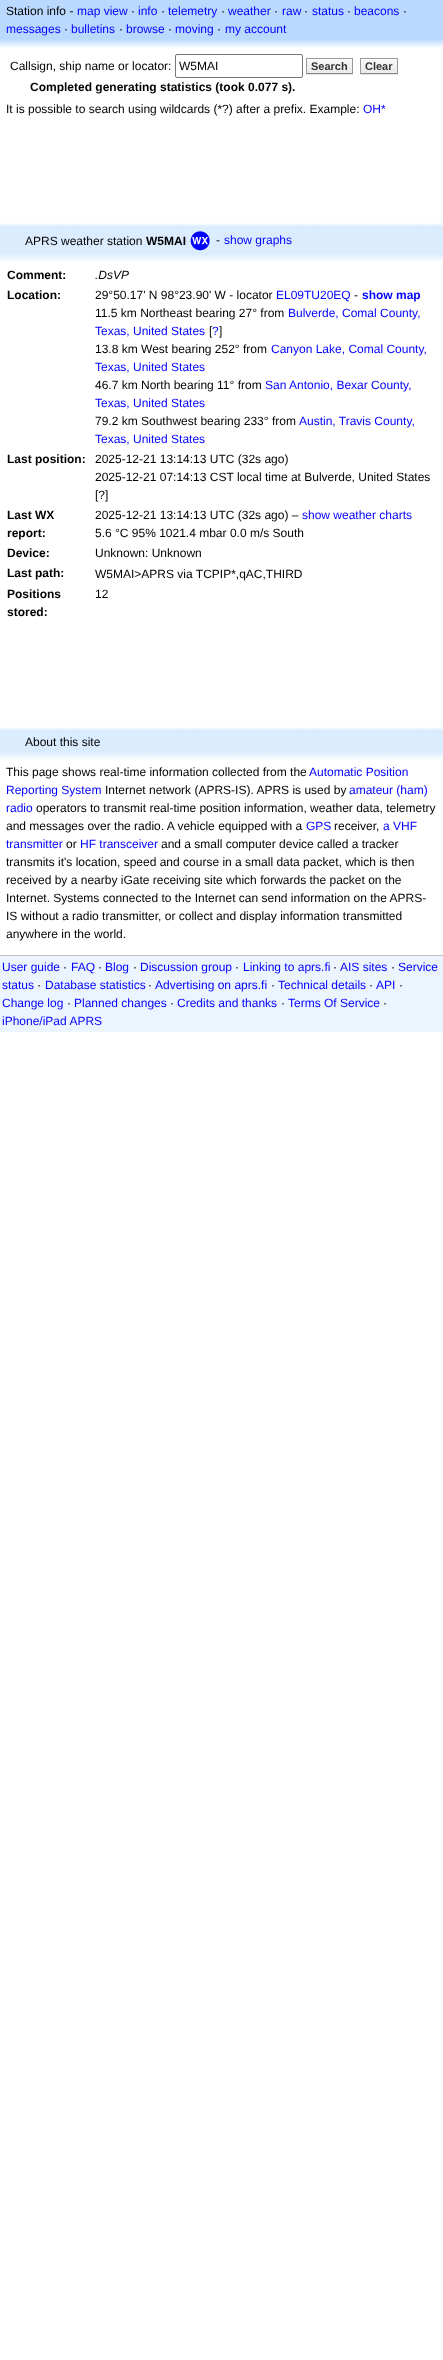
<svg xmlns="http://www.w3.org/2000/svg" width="443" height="2360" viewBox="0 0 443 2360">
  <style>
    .t1 { font: 12px Liberation Sans; fill: #000; }
    .t2 { font: 12px Liberation Sans; fill: #00f; }
    .t3 { font: bold 11px Liberation Sans; fill: #333; }
    .t4 { font: bold 12px Liberation Sans; fill: #000; }
    .t5 { font: italic 12px Liberation Sans; fill: #000; }
    .t6 { font: bold 12px Liberation Sans; fill: #00f; }
  </style>
  <rect width="100%" height="100%" fill="#fff"/>
  <rect x="0" y="0" width="443" height="38" fill="#bbd9ff"/>
  <text x="6" y="15" class="t1">Station info -</text>
  <text x="77" y="15" class="t2">map view</text>
  <text x="131" y="15" class="t1">·</text>
  <text x="138" y="15" class="t2">info</text>
  <text x="161" y="15" class="t1">·</text>
  <text x="168" y="15" class="t2">telemetry</text>
  <text x="221" y="15" class="t1">·</text>
  <text x="228" y="15" class="t2">weather</text>
  <text x="274" y="15" class="t1">·</text>
  <text x="282" y="15" class="t2">raw</text>
  <text x="304" y="15" class="t1">·</text>
  <text x="312" y="15" class="t2">status</text>
  <text x="347" y="15" class="t1">·</text>
  <text x="354" y="15" class="t2">beacons</text>
  <text x="403" y="15" class="t1">·</text>
  <text x="6" y="33" class="t2">messages</text>
  <text x="64" y="33" class="t1">·</text>
  <text x="71" y="33" class="t2">bulletins</text>
  <text x="119" y="33" class="t1">·</text>
  <text x="126" y="33" class="t2">browse</text>
  <text x="168" y="33" class="t1">·</text>
  <text x="175" y="33" class="t2">moving</text>
  <text x="217" y="33" class="t1">·</text>
  <text x="225" y="33" class="t2">my account</text>
  <image x="0" y="38" width="443" height="10" href="images/1.png"/>
  <text x="10" y="70" class="t1">Callsign, ship name or locator:</text>
  <rect x="175.5" y="54.5" width="127" height="23" rx="1.5" fill="none" stroke="#767676"/>
  <text x="179" y="70" class="t1">W5MAI</text>
  <rect x="306" y="74" width="47" height="1" fill="#e6e6e6"/>
  <image x="307" y="59" width="45" height="14" href="images/2.png"/>
  <rect x="306" y="58" width="47" height="1" fill="#999"/>
  <rect x="352" y="58" width="1" height="16" fill="#999"/>
  <rect x="306" y="73" width="47" height="1" fill="#888"/>
  <rect x="306" y="58" width="1" height="16" fill="#999"/>
  <text x="311" y="70" class="t3">Search</text>
  <rect x="360" y="74" width="38" height="1" fill="#e6e6e6"/>
  <image x="361" y="59" width="36" height="14" href="images/3.png"/>
  <rect x="360" y="58" width="38" height="1" fill="#999"/>
  <rect x="397" y="58" width="1" height="16" fill="#999"/>
  <rect x="360" y="73" width="38" height="1" fill="#888"/>
  <rect x="360" y="58" width="1" height="16" fill="#999"/>
  <text x="365" y="70" class="t3">Clear</text>
  <text x="30" y="91" class="t4">Completed generating statistics (took 0.077 s).</text>
  <text x="6" y="113" class="t1">It is possible to search using wildcards (*?) after a prefix. Example:</text>
  <text x="363" y="113" class="t2">OH*</text>
  <image x="0" y="223" width="443" height="4" href="images/4.png"/>
  <rect x="0" y="227" width="443" height="26" fill="#dcecff"/>
  <text x="25" y="245" class="t1">APRS weather station</text>
  <text x="146" y="245" class="t4">W5MAI</text>
  <image x="190" y="231" width="20" height="20" href="images/5.png"/>
  <text x="216" y="244" class="t1">-</text>
  <text x="224" y="244" class="t2">show graphs</text>
  <image x="0" y="253" width="443" height="9" href="images/6.png"/>
  <text x="7" y="279" class="t4">Comment:</text>
  <text x="95" y="279" class="t5">.DsVP</text>
  <text x="7" y="299" class="t4">Location:</text>
  <text x="95" y="299" class="t1">29°50.17' N 98°23.90' W - locator</text>
  <text x="276" y="299" class="t2">EL09TU20EQ</text>
  <text x="354" y="299" class="t1">-</text>
  <text x="362" y="299" class="t6">show map</text>
  <text x="95" y="317" class="t1">11.5 km Northeast bearing 27° from</text>
  <text x="288" y="317" class="t2">Bulverde, Comal County,</text>
  <text x="95" y="335" class="t2">Texas, United States</text>
  <text x="209" y="335" class="t1">[</text>
  <text x="212" y="335" class="t2">?</text>
  <text x="219" y="335" class="t1">]</text>
  <text x="95" y="353" class="t1">13.8 km West bearing 252° from</text>
  <text x="271" y="353" class="t2">Canyon Lake, Comal County,</text>
  <text x="95" y="371" class="t2">Texas, United States</text>
  <text x="95" y="389" class="t1">46.7 km North bearing 11° from</text>
  <text x="265" y="389" class="t2">San Antonio, Bexar County,</text>
  <text x="95" y="407" class="t2">Texas, United States</text>
  <text x="95" y="425" class="t1">79.2 km Southwest bearing 233° from</text>
  <text x="299" y="425" class="t2">Austin, Travis County,</text>
  <text x="95" y="443" class="t2">Texas, United States</text>
  <text x="7" y="463" class="t4">Last position:</text>
  <text x="95" y="463" class="t1">2025-12-21 13:14:13 UTC (32s ago)</text>
  <text x="95" y="481" class="t1">2025-12-21 07:14:13 CST local time at Bulverde, United States</text>
  <text x="95" y="499" class="t1">[?]</text>
  <text x="7" y="519" class="t4">Last WX</text>
  <text x="7" y="537" class="t4">report:</text>
  <text x="95" y="519" class="t1">2025-12-21 13:14:13 UTC (32s ago) –</text>
  <text x="302" y="519" class="t2">show weather charts</text>
  <text x="95" y="537" class="t1">5.6 °C 95% 1021.4 mbar 0.0 m/s South</text>
  <text x="7" y="557" class="t4">Device:</text>
  <text x="95" y="557" class="t1">Unknown: Unknown</text>
  <text x="7" y="577" class="t4">Last path:</text>
  <text x="95" y="578" class="t1">W5MAI&gt;APRS via TCPIP*,qAC,THIRD</text>
  <text x="7" y="598" class="t4">Positions</text>
  <text x="7" y="616" class="t4">stored:</text>
  <text x="95" y="598" class="t1">12</text>
  <image x="0" y="727" width="443" height="4" href="images/4.png"/>
  <rect x="0" y="731" width="443" height="20" fill="#dcecff"/>
  <text x="25" y="746" class="t1">About this site</text>
  <image x="0" y="751" width="443" height="9" href="images/6.png"/>
  <text x="6" y="776" class="t1">This page shows real-time information collected from the</text>
  <text x="309" y="776" class="t2">Automatic Position</text>
  <text x="6" y="794" class="t2">Reporting System</text>
  <text x="105" y="794" class="t1">Internet network (APRS-IS). APRS is used by</text>
  <text x="349" y="794" class="t2">amateur (ham)</text>
  <text x="6" y="812" class="t2">radio</text>
  <text x="36" y="812" class="t1">operators to transmit real-time position information, weather data, telemetry</text>
  <text x="6" y="830" class="t1">and messages over the radio. A vehicle equipped with a</text>
  <text x="306" y="830" class="t2">GPS</text>
  <text x="334" y="830" class="t1">receiver,</text>
  <text x="383" y="830" class="t2">a VHF</text>
  <text x="6" y="848" class="t2">transmitter</text>
  <text x="66" y="848" class="t1">or</text>
  <text x="80" y="848" class="t2">HF transceiver</text>
  <text x="161" y="848" class="t1">and a small computer device called a tracker</text>
  <text x="6" y="866" class="t1">transmits it's location, speed and course in a small data packet, which is then</text>
  <text x="6" y="884" class="t1">received by a nearby iGate receiving site which forwards the packet on the</text>
  <text x="6" y="902" class="t1">Internet. Systems connected to the Internet can send information on the APRS-</text>
  <text x="6" y="920" class="t1">IS without a radio transmitter, or collect and display information transmitted</text>
  <text x="6" y="938" class="t1">anywhere in the world.</text>
  <rect x="0" y="956" width="443" height="76" fill="#ebf4ff"/>
  <rect x="0" y="955" width="443" height="1" fill="#bdbdbd"/>
  <text x="2" y="971" class="t2">User guide</text>
  <text x="63" y="971" class="t1">·</text>
  <text x="71" y="971" class="t2">FAQ</text>
  <text x="98" y="971" class="t1">·</text>
  <text x="105" y="971" class="t2">Blog</text>
  <text x="133" y="971" class="t1">·</text>
  <text x="140" y="971" class="t2">Discussion group</text>
  <text x="235" y="971" class="t1">·</text>
  <text x="243" y="971" class="t2">Linking to aprs.fi</text>
  <text x="333" y="971" class="t1">·</text>
  <text x="340" y="971" class="t2">AIS sites</text>
  <text x="391" y="971" class="t1">·</text>
  <text x="398" y="971" class="t2">Service</text>
  <text x="2" y="989" class="t2">status</text>
  <text x="37" y="989" class="t1">·</text>
  <text x="45" y="989" class="t2">Database statistics</text>
  <text x="148" y="989" class="t1">·</text>
  <text x="155" y="989" class="t2">Advertising on aprs.fi</text>
  <text x="271" y="989" class="t1">·</text>
  <text x="278" y="989" class="t2">Technical details</text>
  <text x="369" y="989" class="t1">·</text>
  <text x="376" y="989" class="t2">API</text>
  <text x="399" y="989" class="t1">·</text>
  <text x="2" y="1007" class="t2">Change log</text>
  <text x="67" y="1007" class="t1">·</text>
  <text x="74" y="1007" class="t2">Planned changes</text>
  <text x="170" y="1007" class="t1">·</text>
  <text x="177" y="1007" class="t2">Credits and thanks</text>
  <text x="281" y="1007" class="t1">·</text>
  <text x="288" y="1007" class="t2">Terms Of Service</text>
  <text x="383" y="1007" class="t1">·</text>
  <text x="2" y="1025" class="t2">iPhone/iPad APRS</text>
</svg>
